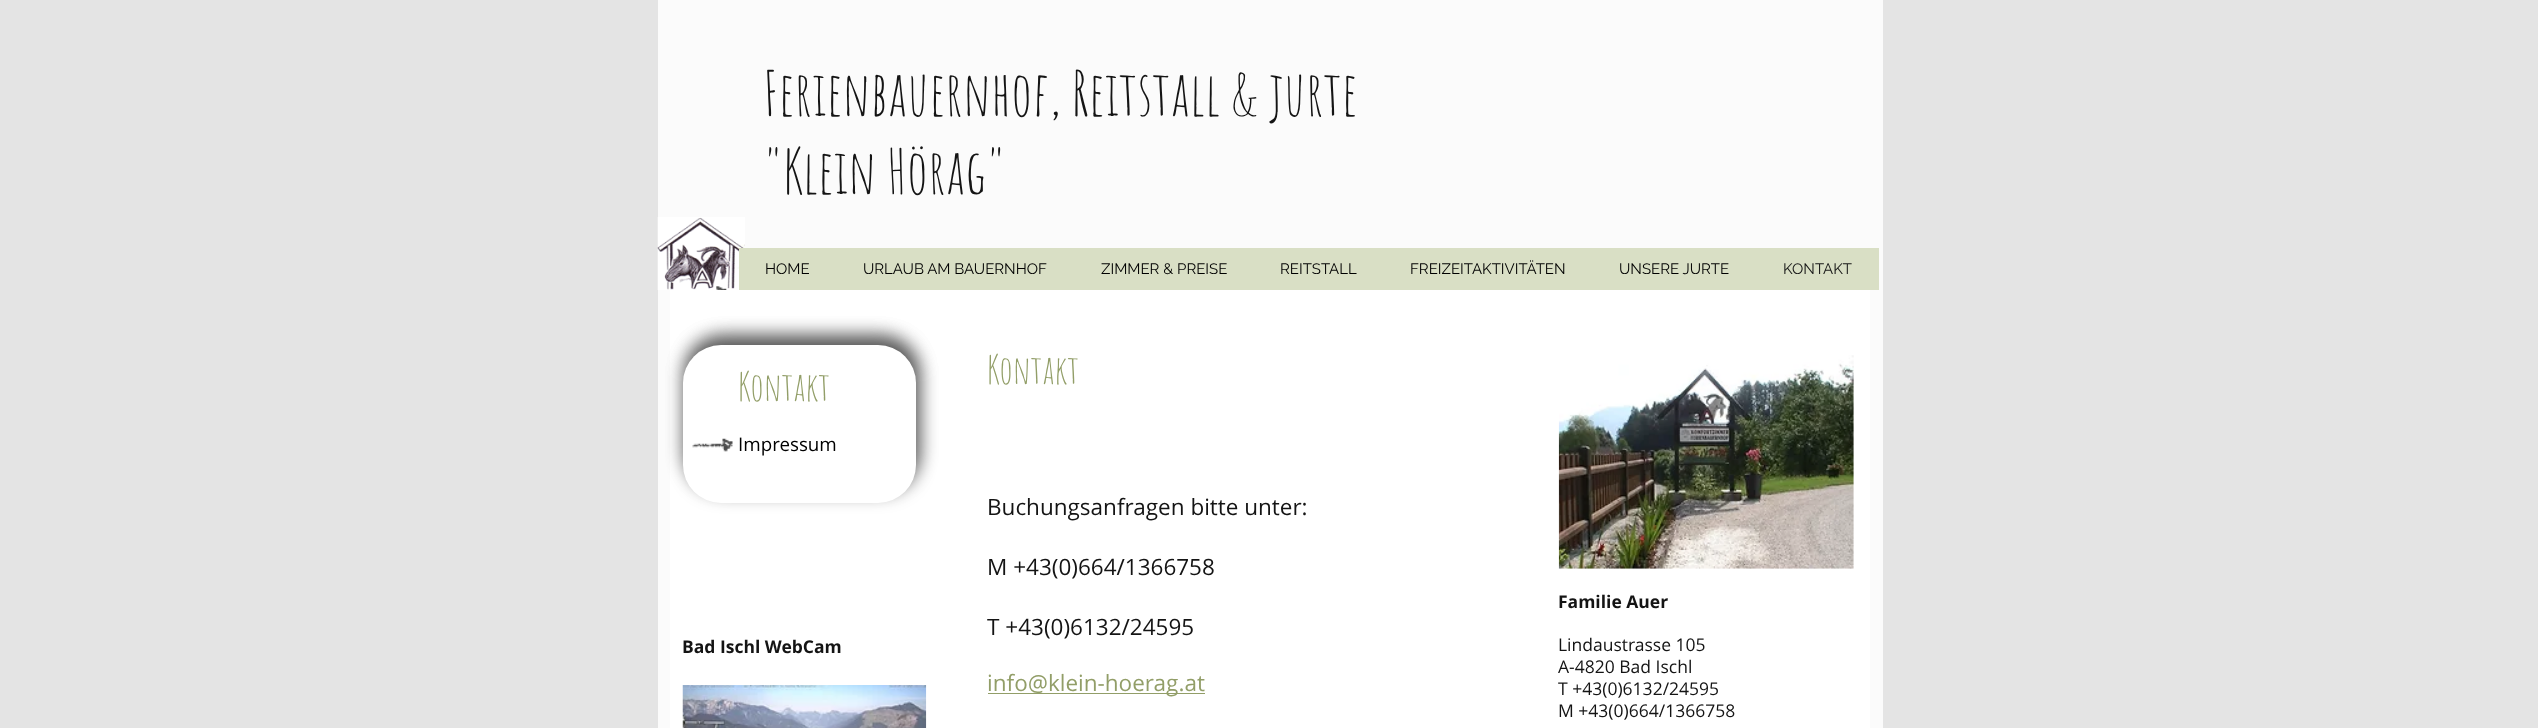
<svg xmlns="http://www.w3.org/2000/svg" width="2538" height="728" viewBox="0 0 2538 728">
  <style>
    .t1 { font: 61.25px Amatic SC; fill: #141414; }
    .t2 { font: 15px Raleway; fill: #000; }
    .t3 { font: 15px Raleway; fill: #141414; }
    .t4 { font: 39px Amatic SC; fill: #929e68; }
    .t5 { font: 18.75px Open Sans; fill: #000; }
    .t6 { font: bold 17.5px Open Sans; fill: #141414; }
    .t7 { font: 22.5px Open Sans; fill: #141414; }
    .t8 { font: 22.5px Open Sans; fill: #929e68; }
    .t9 { font: 17.5px Open Sans; fill: #141414; }
  </style>
  <rect width="100%" height="100%" fill="#e4e4e4"/>
  <rect x="658" y="0" width="1225" height="290" fill="#fbfbfb"/>
  <text x="763" y="116" class="t1">Ferienbauernhof, Reitstall &amp; jurte</text>
  <text x="763" y="194" class="t1">"Klein Hörag"</text>
  <image x="657" y="217" width="88" height="73" href="images/1.png"/>
  <rect x="739" y="248" width="1140" height="42" fill="#d9dfc5"/>
  <text x="765" y="274" class="t2">HOME</text>
  <text x="863" y="274" class="t2">URLAUB AM BAUERNHOF</text>
  <text x="1101" y="274" class="t2">ZIMMER &amp; PREISE</text>
  <text x="1280" y="274" class="t2">REITSTALL</text>
  <text x="1410" y="274" class="t2">FREIZEITAKTIVITÄTEN</text>
  <text x="1619" y="274" class="t2">UNSERE JURTE</text>
  <text x="1783" y="274" class="t3">KONTAKT</text>
  <image x="716" y="286" width="11" height="4" href="images/2.png"/>
  <rect x="658" y="290" width="1225" height="438" fill="#ffffffd9"/>
  <rect x="670" y="290" width="1200" height="438" fill="#fff"/>
  <rect x="685" y="336" width="234" height="152" rx="38" fill="#0000006b" filter="blur(9px)"/>
  <text x="987" y="384" class="t4">Kontakt</text>
  <image x="1558" y="355" width="296" height="214" href="images/3.png"/>
  <rect x="685" y="336" width="234" height="158" rx="38" fill="#0000006b" filter="blur(9px)"/>
  <rect x="683" y="345" width="233" height="158" rx="38" fill="#fff"/>
  <text x="738" y="401" class="t4">Kontakt</text>
  <image x="692" y="438" width="41" height="14" href="images/4.png"/>
  <text x="738" y="451" class="t5">Impressum</text>
  <text x="682" y="653" class="t6">Bad Ischl WebCam</text>
  <image x="682" y="685" width="245" height="43" href="images/5.png"/>
  <text x="987" y="515" class="t7">Buchungsanfragen bitte unter:</text>
  <text x="987" y="575" class="t7">M +43(0)664/1366758</text>
  <text x="987" y="635" class="t7">T +43(0)6132/24595</text>
  <rect x="988" y="693" width="217" height="1" fill="#929e68"/>
  <text x="987" y="691" class="t8">info@klein-hoerag.at</text>
  <text x="1558" y="608" class="t6">Familie Auer</text>
  <text x="1558" y="651" class="t9">Lindaustrasse 105</text>
  <text x="1558" y="673" class="t9">A-4820 Bad Ischl</text>
  <text x="1558" y="695" class="t9">T +43(0)6132/24595</text>
  <text x="1558" y="717" class="t9">M +43(0)664/1366758</text>
</svg>
